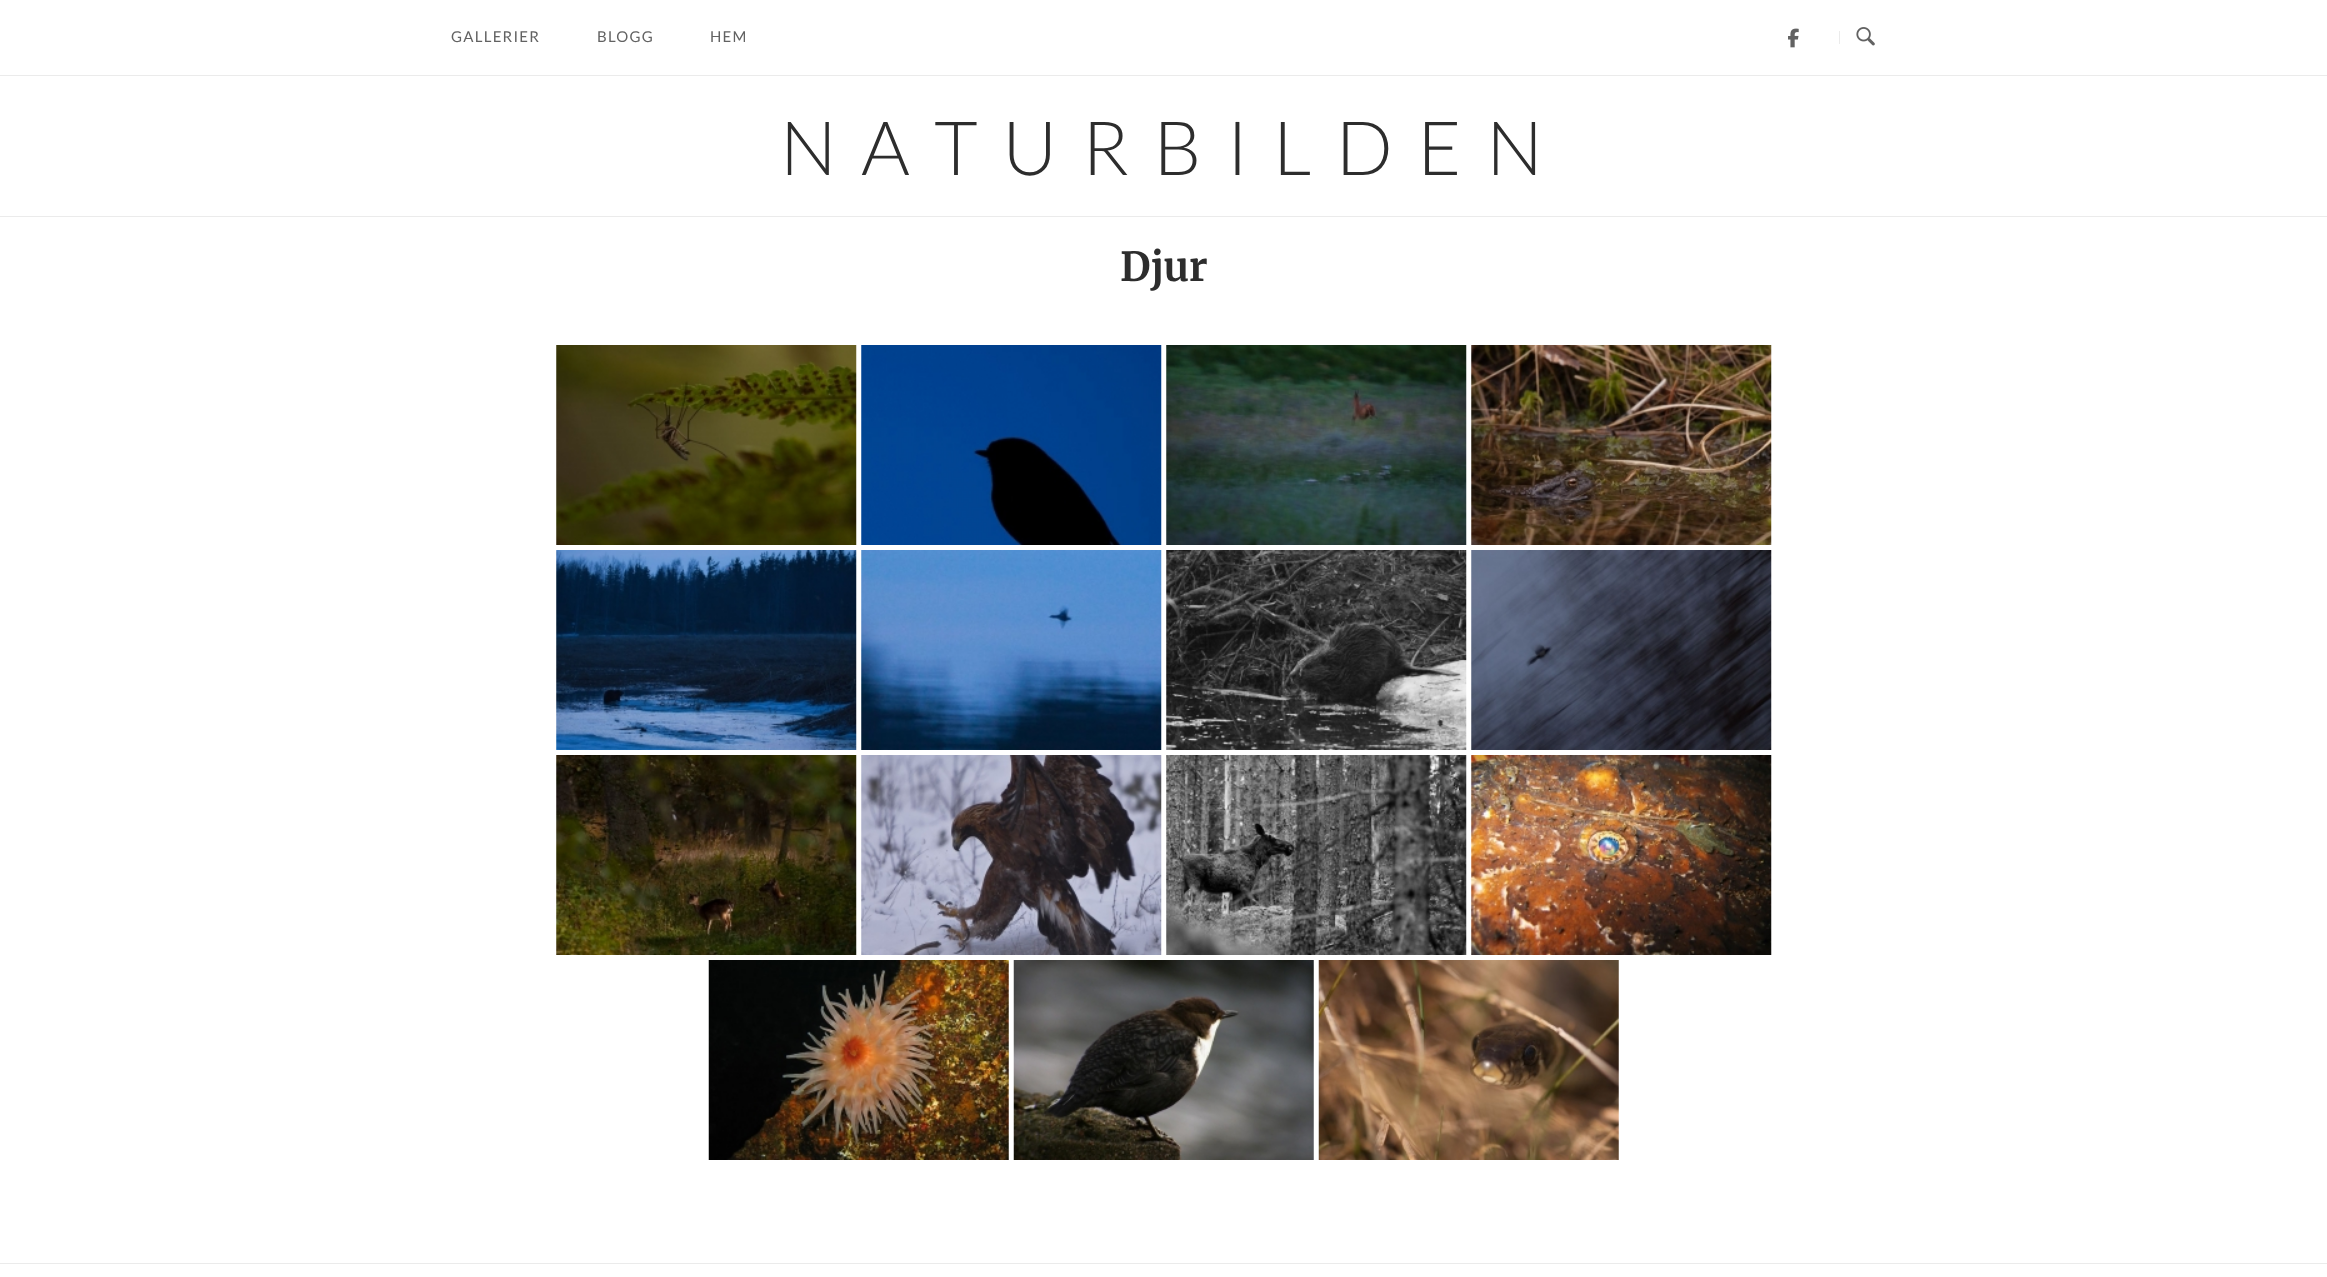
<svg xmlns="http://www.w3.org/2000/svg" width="2327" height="1277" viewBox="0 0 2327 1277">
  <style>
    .t1 { font: 15px Lato; letter-spacing: 1.25px; fill: #626262; }
    .t2 { font: 300 75px Lato; letter-spacing: 5px; fill: #2d2d2d; }
    .t3 { font: bold 40px Merriweather; fill: #2d2d2d; }
  </style>
  <rect width="100%" height="100%" fill="#fff"/>
  <rect x="0" y="216" width="2327" height="1" fill="#ebebeb"/>
  <rect x="0" y="75" width="2327" height="1" fill="#ebebeb"/>
  <text x="451" y="42" class="t1">GALLERIER</text>
  <text x="597" y="42" class="t1">BLOGG</text>
  <text x="710" y="42" class="t1">HEM</text>
  <image x="1788" y="28" width="11" height="20" href="images/1.png"/>
  <rect x="1839" y="31" width="1" height="13" fill="#ebebeb"/>
  <image x="1856" y="27" width="19" height="19" href="images/2.png"/>
  <text x="780" y="175" class="t2">N A T U R B I L D E N</text>
  <text x="1120" y="281" class="t3">Djur</text>
  <image x="556" y="345" width="301" height="200" href="images/3.png"/>
  <image x="861" y="345" width="301" height="200" href="images/4.png"/>
  <image x="1166" y="345" width="301" height="200" href="images/5.png"/>
  <image x="1471" y="345" width="301" height="200" href="images/6.png"/>
  <image x="556" y="550" width="301" height="200" href="images/7.png"/>
  <image x="861" y="550" width="301" height="200" href="images/8.png"/>
  <image x="1166" y="550" width="301" height="200" href="images/9.png"/>
  <image x="1471" y="550" width="301" height="200" href="images/10.png"/>
  <image x="556" y="755" width="301" height="200" href="images/11.png"/>
  <image x="861" y="755" width="301" height="200" href="images/12.png"/>
  <image x="1166" y="755" width="301" height="200" href="images/13.png"/>
  <image x="1471" y="755" width="301" height="200" href="images/14.png"/>
  <image x="708" y="960" width="301" height="200" href="images/15.png"/>
  <image x="1013" y="960" width="301" height="200" href="images/16.png"/>
  <image x="1318" y="960" width="301" height="200" href="images/17.png"/>
  <rect x="0" y="1263" width="2327" height="1" fill="#ebebeb"/>
</svg>
